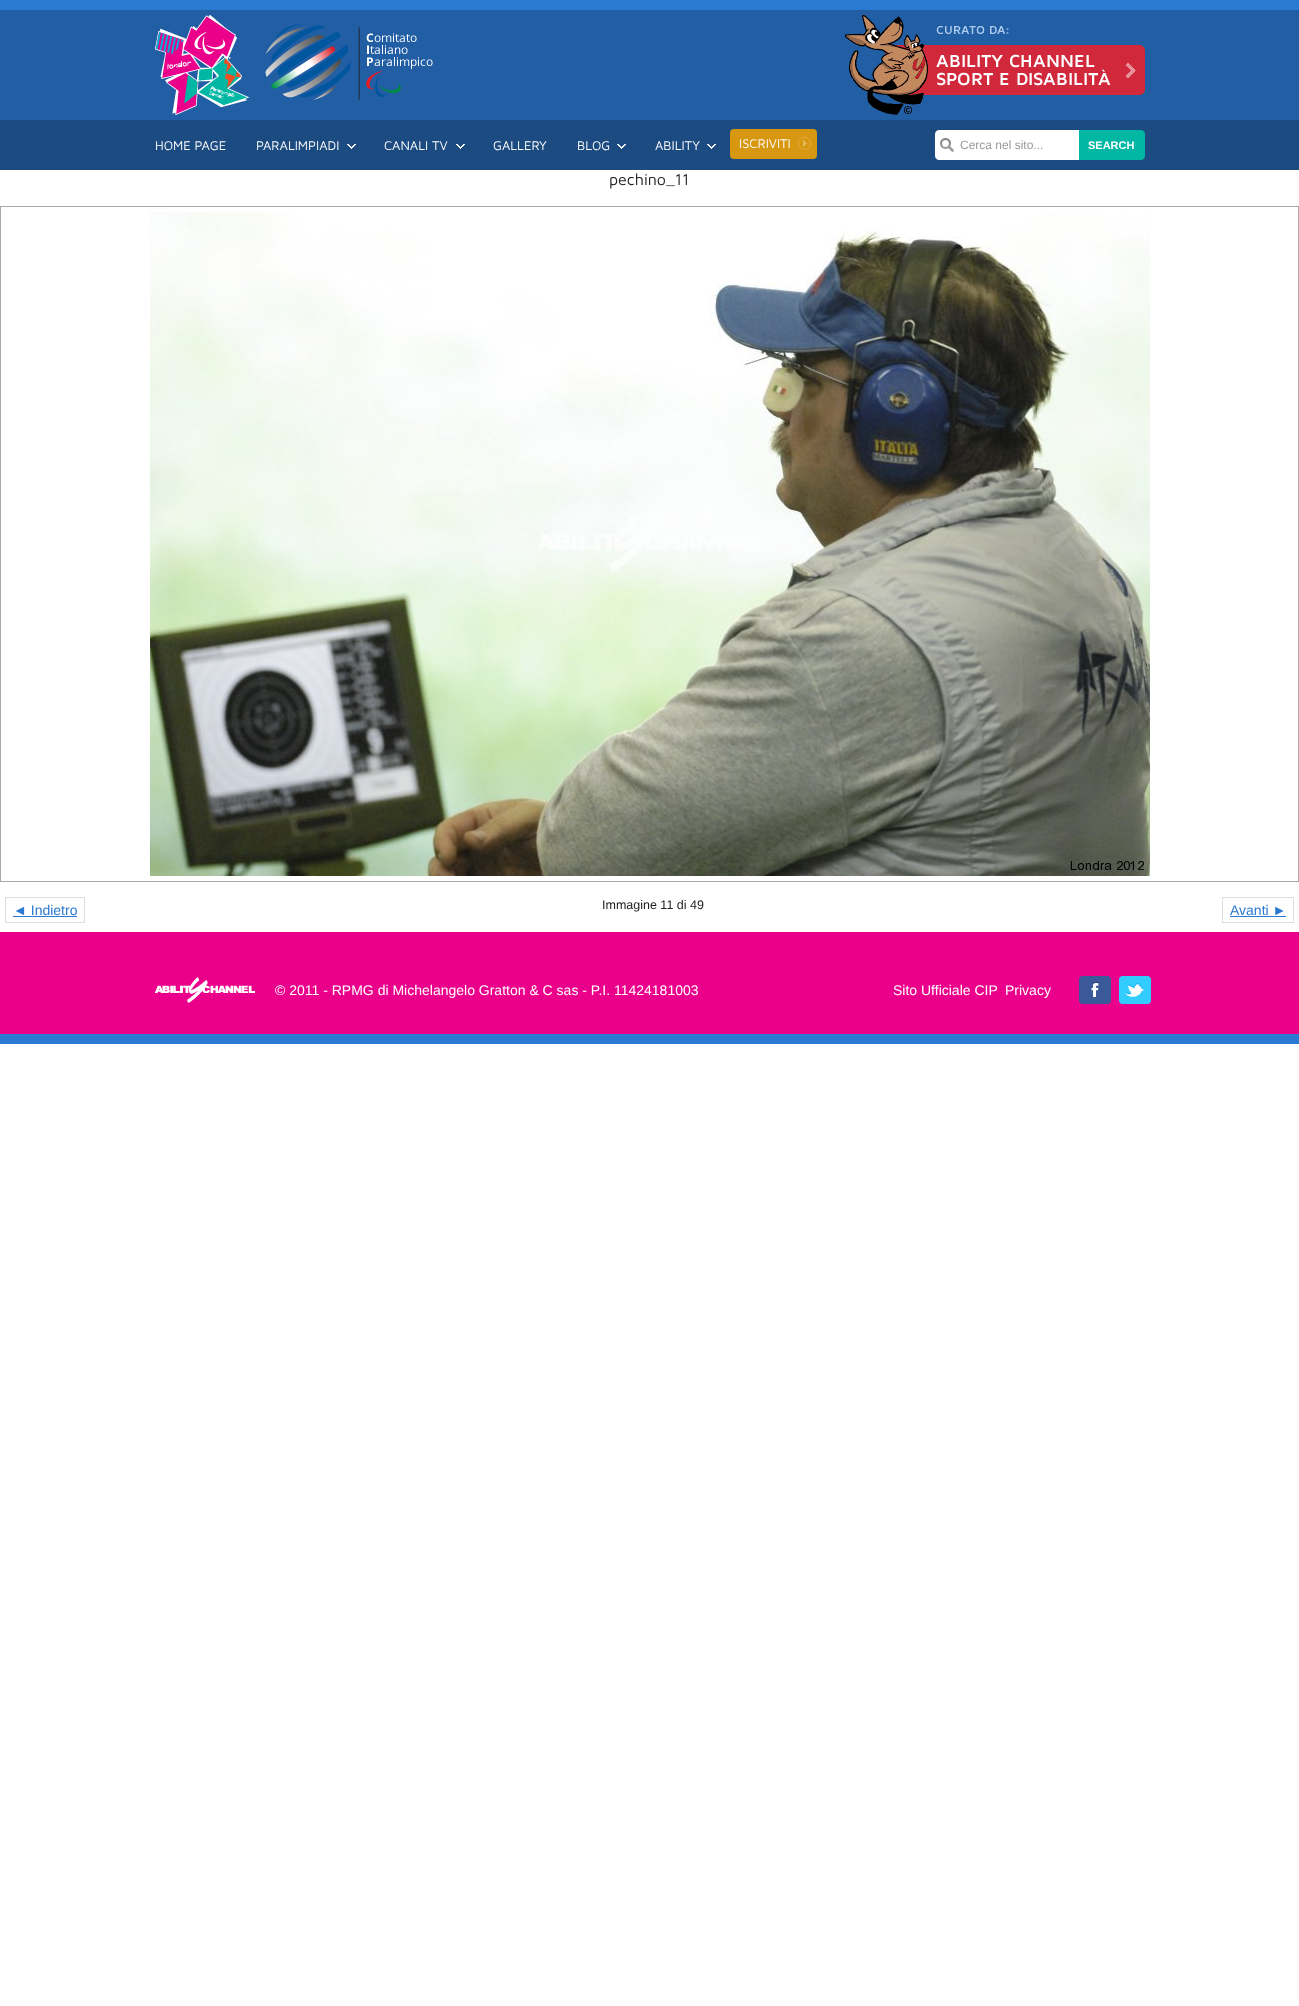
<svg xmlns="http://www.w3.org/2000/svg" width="1299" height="2006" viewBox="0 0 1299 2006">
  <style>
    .t1 { font: 13px Maven Pro; fill: #fff; }
    .t2 { font: 12px Liberation Sans; fill: #999; }
    .t3 { font: bold 11px Liberation Sans; fill: #fff; }
    .t4 { font: 16px Maven Pro; fill: #222; }
    .t5 { font: 14px Liberation Sans; fill: #2b79d0; }
    .t6 { font: 12.5px Liberation Sans; fill: #222; }
    .t7 { font: 14px Liberation Sans; fill: #fff; }
  </style>
  <rect width="100%" height="100%" fill="#fff"/>
  <rect x="0" y="10" width="1299" height="110" fill="#225ea4"/>
  <rect x="0" y="0" width="1299" height="10" fill="#2a7ad1"/>
  <image x="155" y="15" width="94" height="100" href="images/1.png"/>
  <image x="265" y="24" width="168" height="76" href="images/2.png"/>
  <image x="845" y="15" width="300" height="100" href="images/3.png"/>
  <rect x="0" y="120" width="1299" height="50" fill="#1c4b81"/>
  <text x="155" y="150" class="t1">HOME PAGE</text>
  <text x="256" y="150" class="t1">PARALIMPIADI</text>
  <image x="347" y="144" width="9" height="5" href="images/4.png"/>
  <text x="384" y="150" class="t1">CANALI TV</text>
  <image x="456" y="144" width="9" height="5" href="images/5.png"/>
  <text x="493" y="150" class="t1">GALLERY</text>
  <text x="577" y="150" class="t1">BLOG</text>
  <image x="617" y="144" width="9" height="5" href="images/6.png"/>
  <text x="655" y="150" class="t1">ABILITY</text>
  <image x="707" y="144" width="9" height="5" href="images/4.png"/>
  <rect x="730" y="129" width="87" height="30" rx="4" fill="#d89710"/>
  <text x="739" y="148" class="t1">ISCRIVITI</text>
  <image x="798" y="137" width="13" height="13" href="images/7.png"/>
  <path d="M939 130H1079V160H939C937 160 935 158 935 156V134C935 132 937 130 939 130Z" fill="#fff"/>
  <image x="940" y="138" width="14" height="14" href="images/8.png"/>
  <text x="960" y="149" class="t2">Cerca nel sito...</text>
  <path d="M1079 130H1141C1143 130 1145 132 1145 134V156C1145 158 1143 160 1141 160H1079Z" fill="#00b7a3"/>
  <text x="1088" y="149" class="t3">SEARCH</text>
  <text x="609" y="185" class="t4">pechino_11</text>
  <rect x="0.5" y="206.5" width="1298" height="675" fill="none" stroke="#a9a9a9"/>
  <image x="150" y="212" width="1000" height="664" href="images/9.png"/>
  <rect x="5.5" y="897.5" width="79" height="25" fill="none" stroke="#ddd"/>
  <text x="13" y="915" class="t5">◄ Indietro</text>
  <rect x="13" y="916" width="64" height="1" fill="#2b79d0"/>
  <text x="602" y="909" class="t6">Immagine 11 di 49</text>
  <rect x="1222.5" y="897.5" width="71" height="25" fill="none" stroke="#ddd"/>
  <text x="1230" y="915" class="t5">Avanti ►</text>
  <rect x="1230" y="916" width="56" height="1" fill="#2b79d0"/>
  <rect x="0" y="932" width="1299" height="102" fill="#eb008b"/>
  <rect x="0" y="1034" width="1299" height="10" fill="#2a7ad1"/>
  <image x="155" y="977" width="100" height="26" href="images/10.png"/>
  <text x="275" y="995" class="t7">© 2011 - RPMG di Michelangelo Gratton &amp; C sas - P.I. 11424181003</text>
  <text x="893" y="995" class="t7">Sito Ufficiale CIP</text>
  <text x="1005" y="995" class="t7">Privacy</text>
  <image x="1079" y="976" width="32" height="28" href="images/11.png"/>
  <image x="1119" y="976" width="32" height="28" href="images/12.png"/>
</svg>
